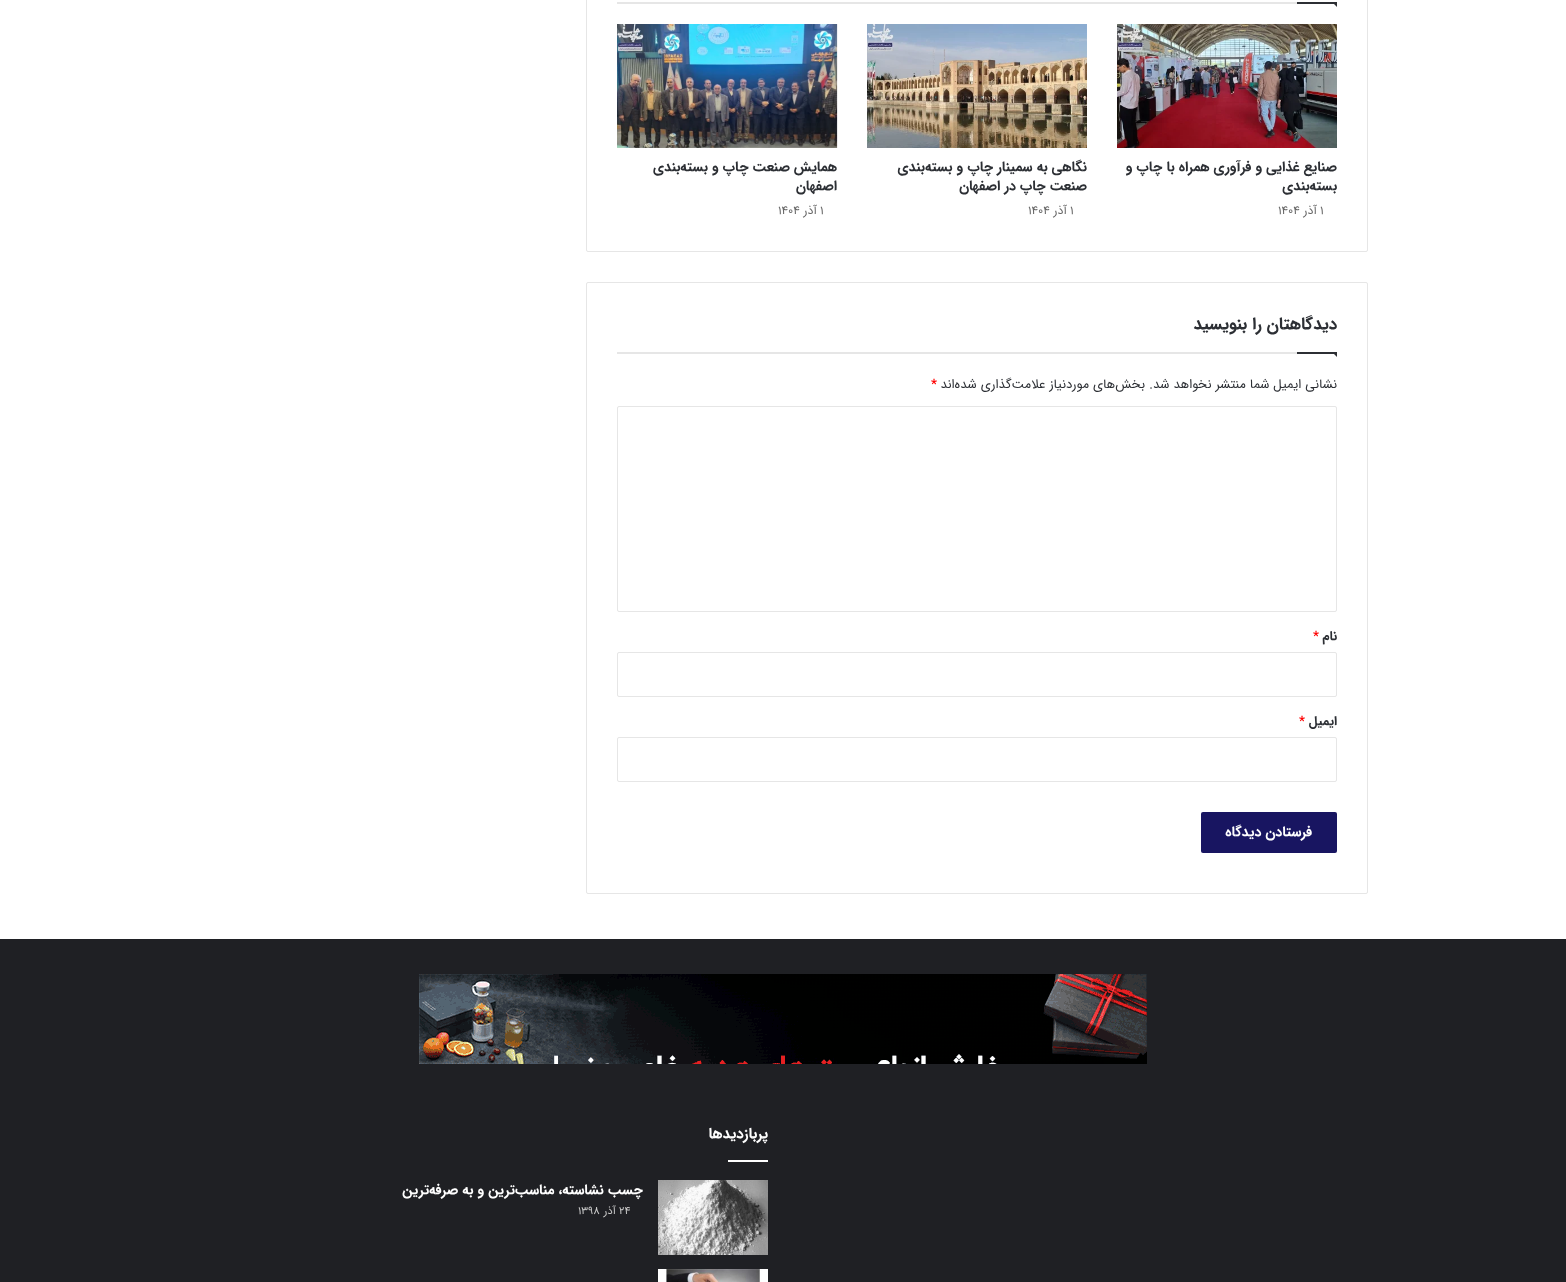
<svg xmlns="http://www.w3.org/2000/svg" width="1566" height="1282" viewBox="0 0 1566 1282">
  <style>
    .t1 { font: bold 14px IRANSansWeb; direction: rtl; fill: #2c2f34; }
    .t2 { font: 12px IRANSansWeb; fill: #666; }
    .t3 { font: 12px IRANSansWeb; direction: rtl; fill: #666; }
    .t4 { font: bold 17px IRANSansWeb; direction: rtl; fill: #2c2f34; }
    .t5 { font: 13px IRANSansWeb; direction: rtl; fill: #2c2f34; }
    .t6 { font: bold 13px IRANSansWeb; fill: #f00; }
    .t7 { font: bold 13px IRANSansWeb; direction: rtl; fill: #2c2f34; }
    .t8 { font: bold 14px IRANSansWeb; direction: rtl; fill: #fff; }
    .t9 { font: bold 15px IRANSansWeb; direction: rtl; fill: #fff; }
    .t10 { font: 11px IRANSansWeb; fill: #ccc; }
    .t11 { font: 11px IRANSansWeb; direction: rtl; fill: #ccc; }
  </style>
  <rect width="100%" height="100%" fill="#fff"/>
  <rect x="586.5" y="-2.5" width="781" height="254" rx="1.5" fill="none" stroke="#e6e6e6"/>
  <rect x="617" y="2" width="680" height="2" fill="#e6e6e6"/>
  <path d="M1332 2H1337V7Z" fill="#2c2f34"/>
  <rect x="1297" y="2" width="40" height="2" fill="#2c2f34"/>
  <image x="1117" y="24" width="220" height="124" href="images/1.png"/>
  <text x="1337" y="171" class="t1">صنایع غذایی و فرآوری همراه با چاپ و</text>
  <text x="1337" y="190" class="t1">بسته‌بندی</text>
  <text x="1320" y="214" class="t2">۱</text>
  <text x="1317" y="214" class="t3">آذر</text>
  <text x="1278" y="214" class="t2">۱۴۰۴</text>
  <image x="867" y="24" width="220" height="124" href="images/2.png"/>
  <text x="1087" y="171" class="t1">نگاهی به سمینار چاپ و بسته‌بندی</text>
  <text x="1087" y="190" class="t1">صنعت چاپ در اصفهان</text>
  <text x="1070" y="214" class="t2">۱</text>
  <text x="1067" y="214" class="t3">آذر</text>
  <text x="1028" y="214" class="t2">۱۴۰۴</text>
  <image x="617" y="24" width="221" height="124" href="images/3.png"/>
  <text x="837" y="171" class="t1">همایش صنعت چاپ و بسته‌بندی</text>
  <text x="837" y="190" class="t1">اصفهان</text>
  <text x="820" y="214" class="t2">۱</text>
  <text x="817" y="214" class="t3">آذر</text>
  <text x="778" y="214" class="t2">۱۴۰۴</text>
  <rect x="586.5" y="282.5" width="781" height="611" rx="1.5" fill="none" stroke="#e6e6e6"/>
  <rect x="617" y="352" width="680" height="2" fill="#e6e6e6"/>
  <text x="1337" y="329" class="t4">دیدگاهتان را بنویسید</text>
  <path d="M1332 352H1337V357Z" fill="#2c2f34"/>
  <rect x="1297" y="352" width="40" height="2" fill="#2c2f34"/>
  <text x="1337" y="388" class="t5">نشانی ایمیل شما منتشر نخواهد شد.</text>
  <text x="1145" y="388" class="t5">بخش‌های موردنیاز علامت‌گذاری شده‌اند</text>
  <text x="931" y="388" class="t6">*</text>
  <rect x="617.5" y="406.5" width="719" height="205" rx="1.5" fill="none" stroke="#e6e6e6"/>
  <text x="1337" y="640" class="t7">نام</text>
  <text x="1313" y="640" class="t6">*</text>
  <rect x="617.5" y="652.5" width="719" height="44" rx="1.5" fill="none" stroke="#e6e6e6"/>
  <text x="1337" y="725" class="t7">ایمیل</text>
  <text x="1299" y="725" class="t6">*</text>
  <rect x="617.5" y="737.5" width="719" height="44" rx="1.5" fill="none" stroke="#e6e6e6"/>
  <rect x="1201" y="812" width="136" height="41" rx="2" fill="#181561"/>
  <text x="1312" y="836" class="t8">فرستادن دیدگاه</text>
  <rect x="0" y="939" width="1566" height="343" fill="#1f2024"/>
  <image x="419" y="974" width="728" height="90" href="images/4.png"/>
  <text x="768" y="1138" class="t9">پربازدیدها</text>
  <rect x="728" y="1160" width="40" height="2" fill="#fff"/>
  <image x="658" y="1180" width="110" height="75" href="images/5.png"/>
  <text x="643" y="1194" class="t8">چسب نشاسته، مناسب‌ترین و به صرفه‌ترین</text>
  <text x="619" y="1214" class="t10">۲۴</text>
  <text x="616" y="1214" class="t11">آذر</text>
  <text x="578" y="1214" class="t10">۱۳۹۸</text>
  <image x="658" y="1269" width="110" height="13" href="images/6.png"/>
</svg>
